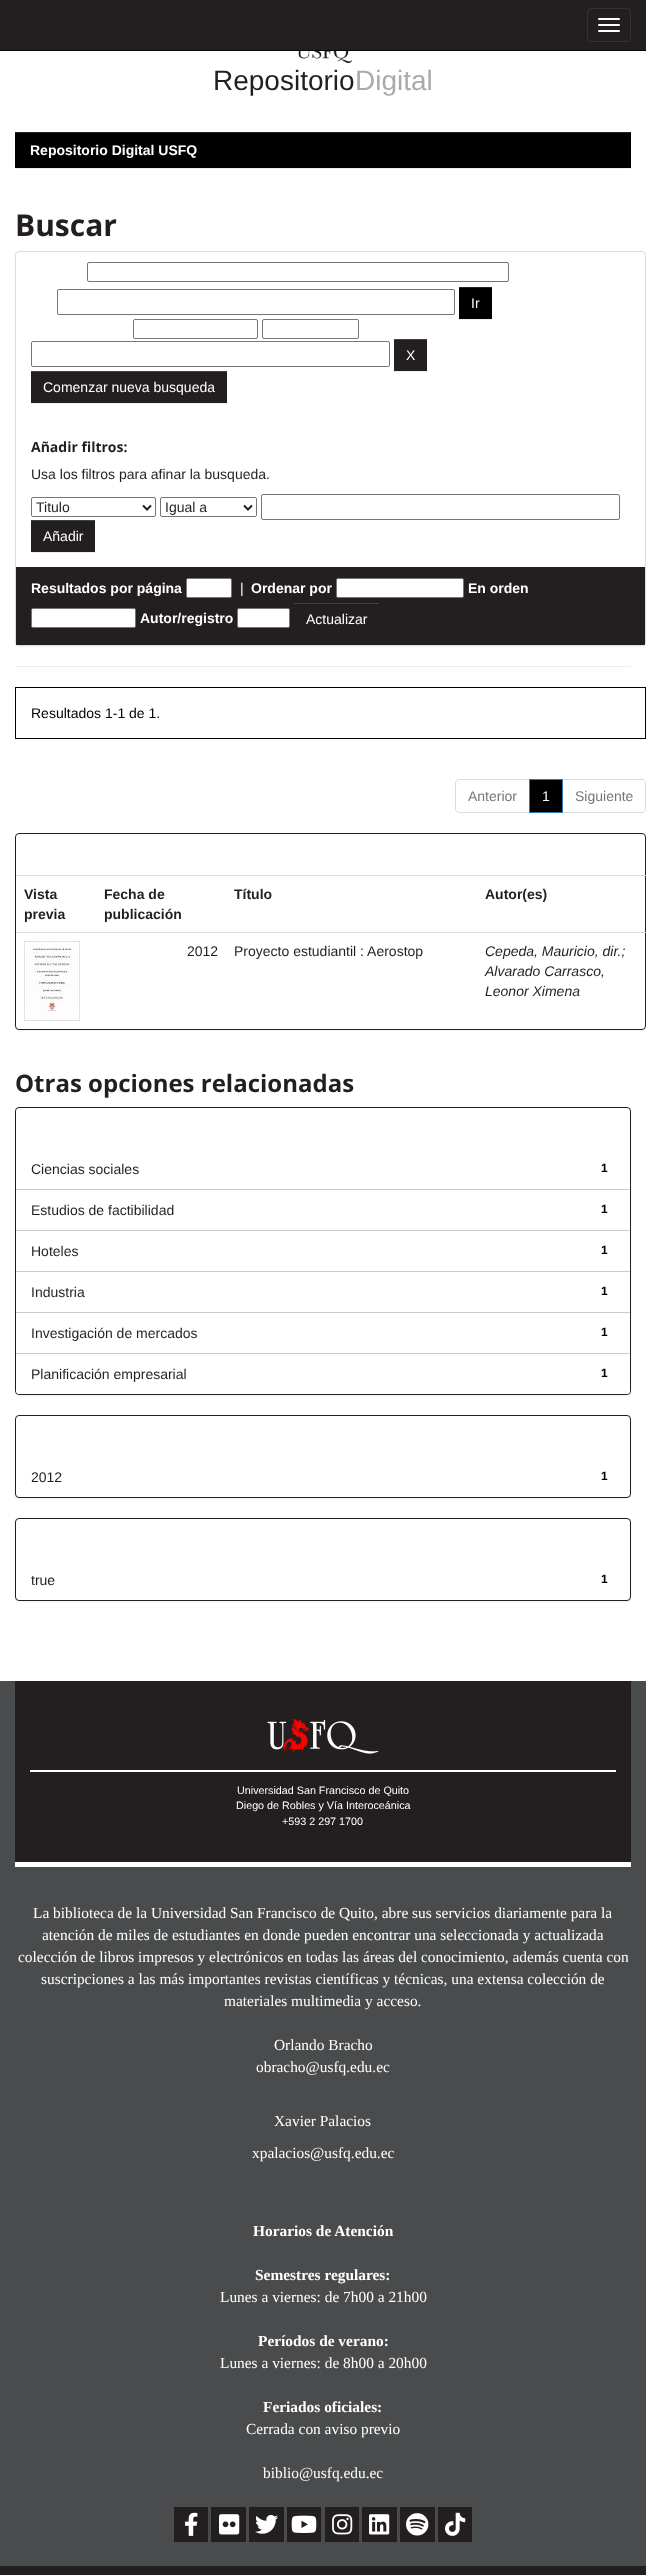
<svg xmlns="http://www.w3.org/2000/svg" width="646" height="2575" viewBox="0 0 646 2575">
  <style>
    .t1 { font: 28px Liberation Sans; fill: #231f20; }
    .t2 { font: 28px Liberation Sans; fill: #aaa; }
    .t3 { font: bold 14px Liberation Sans; fill: #fff; }
    .t4 { font: bold 30px Open Sans; fill: #231f20; }
    .t5 { font: 14px Liberation Sans; fill: #fff; }
    .t6 { font: bold 14px Open Sans; fill: #231f20; }
    .t7 { font: 14px Liberation Sans; fill: #231f20; }
    .t8 { font: 14px Liberation Sans; fill: #000; }
    .t9 { font: 14px Liberation Sans; fill: #777; }
    .t10 { font: bold 14px Liberation Sans; fill: #231f20; }
    .t11 { font: italic 14px Liberation Sans; fill: #231f20; }
    .t12 { font: bold 24px Open Sans; fill: #231f20; }
    .t13 { font: bold 12px Liberation Sans; fill: #000; }
    .t14 { font: 10.75px Liberation Sans; fill: #fff; }
    .t15 { font: 15.4px Liberation Serif; fill: #fff; }
    .t16 { font: bold 15.4px Liberation Serif; fill: #fff; }
  </style>
  <rect width="100%" height="100%" fill="#fff"/>
  <rect x="0" y="0" width="646" height="50" fill="#231f20"/>
  <rect x="0" y="50" width="646" height="1" fill="#080808"/>
  <rect x="587.5" y="8.5" width="43" height="33" rx="3.5" fill="none" stroke="#333"/>
  <rect x="598" y="18" width="22" height="2" rx="1" fill="#fff"/>
  <rect x="598" y="24" width="22" height="2" rx="1" fill="#fff"/>
  <rect x="598" y="30" width="22" height="2" rx="1" fill="#fff"/>
  <image x="269" y="51" width="107" height="12" href="images/1.png"/>
  <text x="213" y="90" class="t1">Repositorio</text>
  <text x="355" y="90" class="t2">Digital</text>
  <rect x="15" y="133" width="616" height="36" fill="#00000012" filter="blur(0.5px)"/>
  <rect x="15" y="133" width="616" height="35" fill="#000"/>
  <rect x="15" y="132" width="616" height="1" fill="#262626"/>
  <text x="30" y="155" class="t3">Repositorio Digital USFQ</text>
  <text x="15" y="236" class="t4">Buscar</text>
  <rect x="15" y="252" width="631" height="395" rx="4" fill="#0000000d" filter="blur(1px)"/>
  <rect x="15.5" y="251.5" width="630" height="394" rx="3.5" fill="#fff" stroke="#ddd"/>
  <rect x="87.5" y="262.5" width="421" height="19" rx="1.5" fill="none" stroke="#767676"/>
  <rect x="57.5" y="289.5" width="397" height="25" rx="1.5" fill="none" stroke="#767676"/>
  <rect x="459" y="288" width="33" height="32" fill="#00000012" filter="blur(0.5px)"/>
  <rect x="459" y="288" width="33" height="31" fill="#000"/>
  <rect x="459" y="287" width="33" height="1" fill="#262626"/>
  <text x="471" y="308" class="t5">Ir</text>
  <rect x="133.5" y="319.5" width="124" height="19" rx="1.5" fill="none" stroke="#767676"/>
  <rect x="262.5" y="319.5" width="96" height="19" rx="1.5" fill="none" stroke="#767676"/>
  <rect x="31.5" y="341.5" width="358" height="25" rx="1.5" fill="none" stroke="#767676"/>
  <rect x="394" y="340" width="33" height="32" fill="#00000012" filter="blur(0.5px)"/>
  <rect x="394" y="340" width="33" height="31" fill="#231f20"/>
  <rect x="394" y="339" width="33" height="1" fill="#444141"/>
  <text x="406" y="360" class="t5">X</text>
  <rect x="31" y="372" width="196" height="32" fill="#00000012" filter="blur(0.5px)"/>
  <rect x="31" y="372" width="196" height="31" fill="#231f20"/>
  <rect x="31" y="371" width="196" height="1" fill="#444141"/>
  <text x="43" y="392" class="t5">Comenzar nueva busqueda</text>
  <text x="31" y="452" class="t6">Añadir filtros:</text>
  <text x="31" y="479" class="t7">Usa los filtros para afinar la busqueda.</text>
  <rect x="31.5" y="497.5" width="124" height="19" rx="1.5" fill="none" stroke="#767676"/>
  <path d="M143 505.5L147 509.5L151 505.5" fill="none" stroke="#231f20" stroke-width="2"/>
  <text x="36" y="512" class="t7">Titulo</text>
  <rect x="160.5" y="497.5" width="96" height="19" rx="1.5" fill="none" stroke="#767676"/>
  <path d="M244 505.5L248 509.5L252 505.5" fill="none" stroke="#231f20" stroke-width="2"/>
  <text x="165" y="512" class="t7">Igual a</text>
  <rect x="261.5" y="494.5" width="358" height="25" rx="1.5" fill="none" stroke="#767676"/>
  <rect x="31" y="521" width="64" height="32" fill="#00000012" filter="blur(0.5px)"/>
  <rect x="31" y="521" width="64" height="31" fill="#231f20"/>
  <rect x="31" y="520" width="64" height="1" fill="#444141"/>
  <text x="43" y="541" class="t5">Añadir</text>
  <rect x="16" y="567" width="629" height="78" fill="#231f20"/>
  <text x="31" y="593" class="t3">Resultados por página</text>
  <rect x="186.5" y="578.5" width="45" height="19" rx="1.5" fill="#fff" stroke="#767676"/>
  <text x="240" y="593" class="t5">|</text>
  <text x="251" y="593" class="t3">Ordenar por</text>
  <rect x="336.5" y="578.5" width="127" height="19" rx="1.5" fill="#fff" stroke="#767676"/>
  <text x="468" y="593" class="t3">En orden</text>
  <rect x="31.5" y="608.5" width="104" height="19" rx="1.5" fill="#fff" stroke="#767676"/>
  <text x="140" y="623" class="t3">Autor/registro</text>
  <rect x="237.5" y="608.5" width="52" height="19" rx="1.5" fill="#fff" stroke="#767676"/>
  <rect x="294" y="603" width="85" height="1" fill="#444141"/>
  <text x="306" y="624" class="t5">Actualizar</text>
  <rect x="15" y="666" width="616" height="1" fill="#eee"/>
  <rect x="15.5" y="687.5" width="630" height="51" fill="none" stroke="#000"/>
  <text x="31" y="718" class="t8">Resultados 1-1 de 1.</text>
  <path d="M459 779.5H529.5V812.5H459C457 812.5 455.5 811 455.5 809V783C455.5 781 457 779.5 459 779.5Z" fill="none" stroke="#ddd"/>
  <text x="468" y="801" class="t9">Anterior</text>
  <path d="M562.5 779.5H642C644 779.5 645.5 781 645.5 783V809C645.5 811 644 812.5 642 812.5H562.5Z" fill="none" stroke="#ddd"/>
  <rect x="529.5" y="779.5" width="33" height="33" fill="#000" stroke="#337ab7"/>
  <text x="542" y="801" class="t5">1</text>
  <text x="575" y="801" class="t9">Siguiente</text>
  <rect x="15" y="834" width="631" height="197" rx="4" fill="#0000000d" filter="blur(1px)"/>
  <rect x="15.5" y="833.5" width="630" height="196" rx="3.5" fill="#fff" stroke="#231f20"/>
  <text x="24" y="899" class="t10">Vista</text>
  <text x="24" y="919" class="t10">previa</text>
  <text x="104" y="899" class="t10">Fecha de</text>
  <text x="104" y="919" class="t10">publicación</text>
  <text x="234" y="899" class="t10">Título</text>
  <rect x="16" y="875" width="630" height="1" fill="#ddd"/>
  <text x="485" y="899" class="t10">Autor(es)</text>
  <image x="24" y="941" width="56" height="80" href="images/2.png"/>
  <text x="187" y="956" class="t7">2012</text>
  <text x="234" y="956" class="t7">Proyecto estudiantil : Aerostop</text>
  <rect x="16" y="932" width="630" height="1" fill="#ddd"/>
  <text x="485" y="956" class="t11">Cepeda, Mauricio, dir.;</text>
  <text x="485" y="976" class="t11">Alvarado Carrasco,</text>
  <text x="485" y="996" class="t11">Leonor Ximena</text>
  <text x="15" y="1092" class="t12">Otras opciones relacionadas</text>
  <rect x="15" y="1108" width="616" height="288" rx="4" fill="#0000000d" filter="blur(1px)"/>
  <rect x="15.5" y="1107.5" width="615" height="287" rx="3.5" fill="#fff" stroke="#231f20"/>
  <rect x="16" y="1189" width="614" height="1" fill="#cbcbcb"/>
  <text x="31" y="1174" class="t7">Ciencias sociales</text>
  <text x="601" y="1172" class="t13">1</text>
  <rect x="16" y="1230" width="614" height="1" fill="#cbcbcb"/>
  <text x="31" y="1215" class="t7">Estudios de factibilidad</text>
  <text x="601" y="1213" class="t13">1</text>
  <rect x="16" y="1271" width="614" height="1" fill="#cbcbcb"/>
  <text x="31" y="1256" class="t7">Hoteles</text>
  <text x="601" y="1254" class="t13">1</text>
  <rect x="16" y="1312" width="614" height="1" fill="#cbcbcb"/>
  <text x="31" y="1297" class="t7">Industria</text>
  <text x="601" y="1295" class="t13">1</text>
  <text x="31" y="1338" class="t7">Investigación de mercados</text>
  <text x="601" y="1336" class="t13">1</text>
  <path d="M16 1353H630V1391C630 1392.5 628.5 1394 627 1394H19C17.5 1394 16 1392.5 16 1391Z" fill="#fff"/>
  <rect x="16" y="1353" width="614" height="1" fill="#cbcbcb"/>
  <text x="31" y="1379" class="t7">Planificación empresarial</text>
  <text x="601" y="1377" class="t13">1</text>
  <rect x="15" y="1416" width="616" height="83" rx="4" fill="#0000000d" filter="blur(1px)"/>
  <rect x="15.5" y="1415.5" width="615" height="82" rx="3.5" fill="#fff" stroke="#231f20"/>
  <text x="31" y="1482" class="t7">2012</text>
  <text x="601" y="1480" class="t13">1</text>
  <rect x="15" y="1519" width="616" height="83" rx="4" fill="#0000000d" filter="blur(1px)"/>
  <rect x="15.5" y="1518.5" width="615" height="82" rx="3.5" fill="#fff" stroke="#231f20"/>
  <text x="31" y="1585" class="t7">true</text>
  <text x="601" y="1583" class="t13">1</text>
  <rect x="0" y="1681" width="646" height="885" fill="#4a4b4c"/>
  <rect x="0" y="2566" width="646" height="9" fill="#231f20"/>
  <rect x="15" y="1681" width="616" height="181" fill="#231f20"/>
  <rect x="15" y="1862" width="616" height="5" fill="#fff"/>
  <image x="267" y="1719" width="112" height="35" href="images/3.png"/>
  <rect x="30" y="1770" width="586" height="2" fill="#fff"/>
  <text x="237" y="1794" class="t14">Universidad San Francisco de Quito</text>
  <text x="236" y="1809" class="t14">Diego de Robles y Vía Interoceánica</text>
  <text x="282" y="1825" class="t14">+593 2 297 1700</text>
  <text x="33" y="1918" class="t15">La biblioteca de la Universidad San Francisco de Quito, abre sus servicios diariamente para la</text>
  <text x="42" y="1940" class="t15">atención de miles de estudiantes en donde pueden encontrar una seleccionada y actualizada</text>
  <text x="18" y="1962" class="t15">colección de libros impresos y electrónicos en todas las áreas del conocimiento, además cuenta con</text>
  <text x="41" y="1984" class="t15">suscripciones a las más importantes revistas científicas y técnicas, una extensa colección de</text>
  <text x="224" y="2006" class="t15">materiales multimedia y acceso.</text>
  <text x="274" y="2050" class="t15">Orlando Bracho</text>
  <text x="256" y="2072" class="t15">obracho@usfq.edu.ec</text>
  <text x="274" y="2126" class="t15">Xavier Palacios</text>
  <text x="252" y="2158" class="t15">xpalacios@usfq.edu.ec</text>
  <text x="253" y="2236" class="t16">Horarios de Atención</text>
  <text x="255" y="2280" class="t16">Semestres regulares:</text>
  <text x="220" y="2302" class="t15">Lunes a viernes: de 7h00 a 21h00</text>
  <text x="258" y="2346" class="t16">Períodos de verano:</text>
  <text x="220" y="2368" class="t15">Lunes a viernes: de 8h00 a 20h00</text>
  <text x="263" y="2412" class="t16">Feriados oficiales:</text>
  <text x="246" y="2434" class="t15">Cerrada con aviso previo</text>
  <text x="263" y="2478" class="t15">biblio@usfq.edu.ec</text>
  <rect x="174" y="2507" width="34" height="35" fill="#231f20"/>
  <image x="185" y="2512" width="13" height="24" href="images/4.png"/>
  <rect x="211" y="2507" width="35" height="35" fill="#231f20"/>
  <image x="219" y="2514" width="21" height="21" href="images/5.png"/>
  <rect x="249" y="2507" width="35" height="35" fill="#231f20"/>
  <image x="255" y="2515" width="23" height="19" href="images/6.png"/>
  <rect x="287" y="2507" width="34" height="35" fill="#231f20"/>
  <image x="291" y="2515" width="26" height="18" href="images/7.png"/>
  <rect x="325" y="2507" width="34" height="35" fill="#231f20"/>
  <image x="332" y="2514" width="21" height="21" href="images/8.png"/>
  <rect x="362" y="2507" width="35" height="35" fill="#231f20"/>
  <image x="369" y="2514" width="21" height="21" href="images/9.png"/>
  <rect x="400" y="2507" width="35" height="35" fill="#231f20"/>
  <image x="406" y="2513" width="23" height="23" href="images/10.png"/>
  <rect x="438" y="2507" width="34" height="35" fill="#231f20"/>
  <image x="445" y="2512" width="21" height="24" href="images/11.png"/>
</svg>
